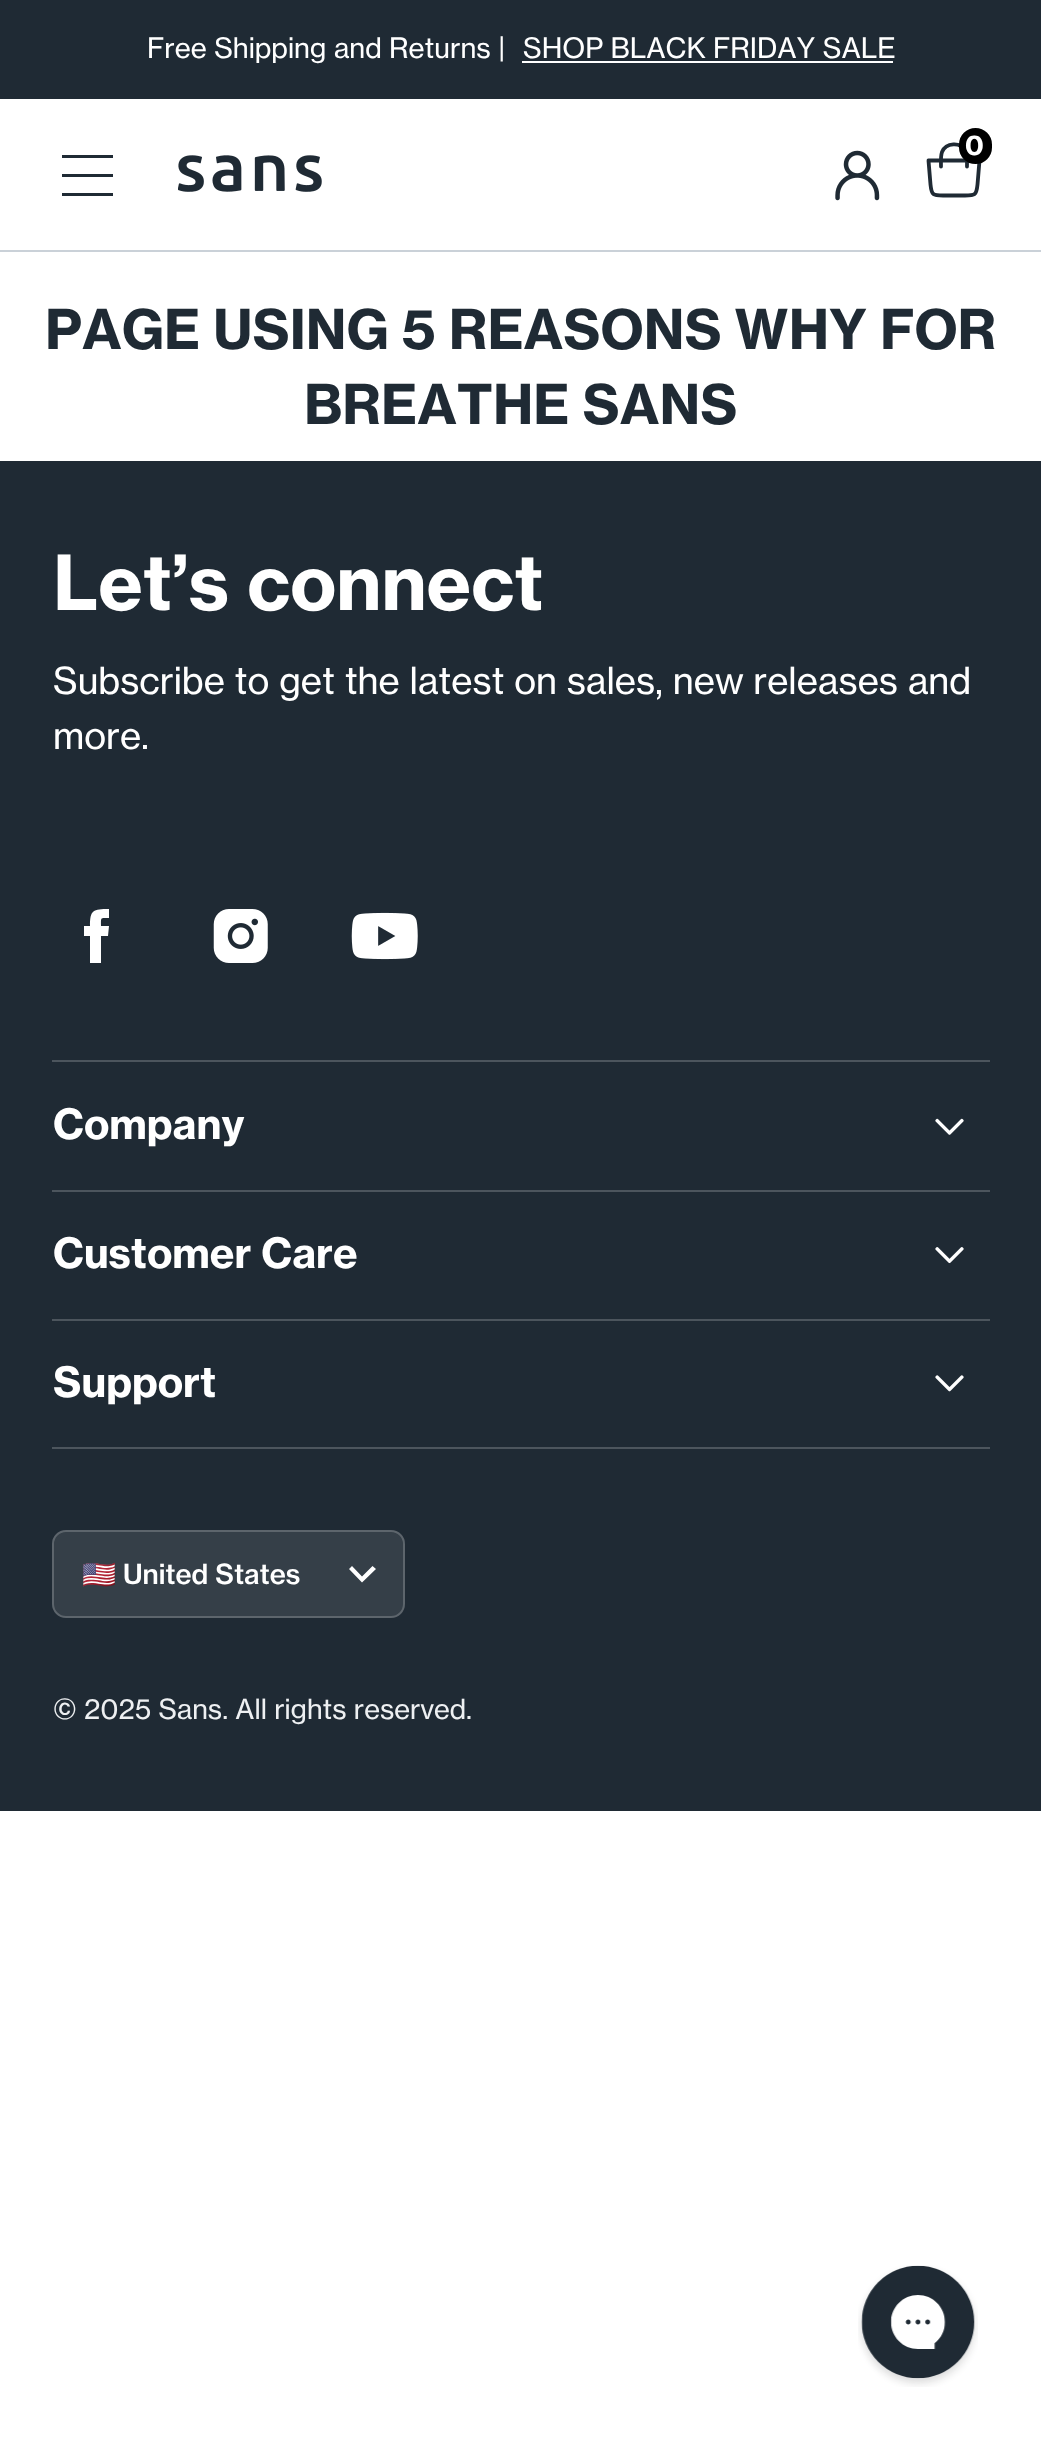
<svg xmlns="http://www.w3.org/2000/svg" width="1041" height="2438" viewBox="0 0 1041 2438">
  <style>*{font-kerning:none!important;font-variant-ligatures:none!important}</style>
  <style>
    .t1 { font: 27.75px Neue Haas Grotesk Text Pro; fill: #fff; }
    .t2 { font: bold 27px Neue Haas Grotesk Text Pro; fill: #fff; }
    .t3 { font: bold 54px Neue Haas Grotesk Text Pro; fill: #1f2a34; }
    .t4 { font: bold 74.75px Neue Haas Grotesk Text Pro; fill: #fff; }
    .t5 { font: 36.7px Neue Haas Grotesk Text Pro; fill: #fff; }
    .t6 { font: bold 41.25px Neue Haas Grotesk Text Pro; fill: #fff; }
    .t7 { font: 27.4px Noto Color Emoji; fill: #fff; }
    .t8 { font: 500 27.4px Neue Haas Grotesk Text Pro; fill: #fff; }
    .t9 { font: 27.4px Neue Haas Grotesk Text Pro; fill: #eef0f2; }
  </style>
  <rect width="100%" height="100%" fill="#fff"/>
  <rect x="0" y="0" width="1041" height="99" fill="#1f2a34"/>
  <text x="147" y="58" class="t1">Free Shipping and Returns |</text>
  <text x="523" y="58" class="t1">SHOP BLACK FRIDAY SALE</text>
  <rect x="522" y="61" width="371" height="2" fill="#fff"/>
  <rect x="0" y="250" width="1041" height="2" fill="#cad1d8"/>
  <path d="M928.5 160.5H979.5L977.5 184.5C976.5 195 975 195.5 965 195.5H943C933 195.5 931.5 195 930.5 184.5Z" fill="none" stroke="#1f2a34" stroke-width="3.8" stroke-linejoin="round"/>
  <path d="M941 166.5C941 162 940.5 156.5 942 152C946 142.5 960.5 141.5 965.5 151C967.5 155.5 967 161.5 967 166.5" fill="none" stroke="#1f2a34" stroke-width="3.8" stroke-linecap="round"/>
  <rect x="961.5" y="130.5" width="28" height="31" rx="14" fill="#000" stroke="#000" stroke-width="5"/>
  <text x="965" y="155" class="t2">0</text>
  <image x="835" y="150" width="45" height="51" href="images/1.png"/>
  <path d="M62 196V193H113V196ZM62 177V174H113V177ZM62 158V155H113V158Z" fill="#1f2a34"/>
  <image x="178" y="155" width="144" height="37" href="images/2.png"/>
  <text x="45" y="349" class="t3">PAGE USING 5 REASONS WHY FOR</text>
  <text x="304" y="424" class="t3">BREATHE SANS</text>
  <rect x="0" y="461" width="1041" height="1350" fill="#1f2a34"/>
  <text x="53" y="610" class="t4">Let’s connect</text>
  <text x="53" y="694" class="t5">Subscribe to get the latest on sales, new releases and</text>
  <text x="53" y="749" class="t5">more.</text>
  <path d="M109 926H101C101 917 100 918 109 918V909C93 909 90 910 90 926H84V936H90V963H101V936H108Z" fill="#fff"/>
  <image x="213" y="909" width="55" height="54" href="images/3.png"/>
  <image x="351" y="912" width="67" height="48" href="images/4.png"/>
  <rect x="52" y="1060" width="938" height="2" fill="#4c555d"/>
  <text x="53" y="1139" class="t6">Company</text>
  <image x="935" y="1118" width="29" height="17" href="images/5.png"/>
  <rect x="52" y="1190" width="938" height="2" fill="#4c555d"/>
  <text x="53" y="1268" class="t6">Customer Care</text>
  <image x="935" y="1247" width="29" height="17" href="images/6.png"/>
  <rect x="52" y="1319" width="938" height="2" fill="#4c555d"/>
  <rect x="52" y="1447" width="938" height="2" fill="#4c555d"/>
  <text x="53" y="1397" class="t6">Support</text>
  <image x="935" y="1375" width="29" height="17" href="images/7.png"/>
  <rect x="52" y="1530" width="353" height="88" rx="14" fill="#353f48"/>
  <path d="M352 1566L362 1576.5L372.5 1566L376 1569L362 1582.5L349 1569Z" fill="#fff"/>
  <rect x="53" y="1531" width="351" height="86" rx="13" fill="none" stroke="#ffffff33" stroke-width="2"/>
  <text x="82" y="1584" class="t7">🇺🇸</text>
  <text x="123" y="1584" class="t8">United States</text>
  <text x="53" y="1719" class="t9">© 2025 Sans. All rights reserved.</text>
  <image x="858" y="2265" width="120" height="122" href="images/8.png"/>
</svg>
